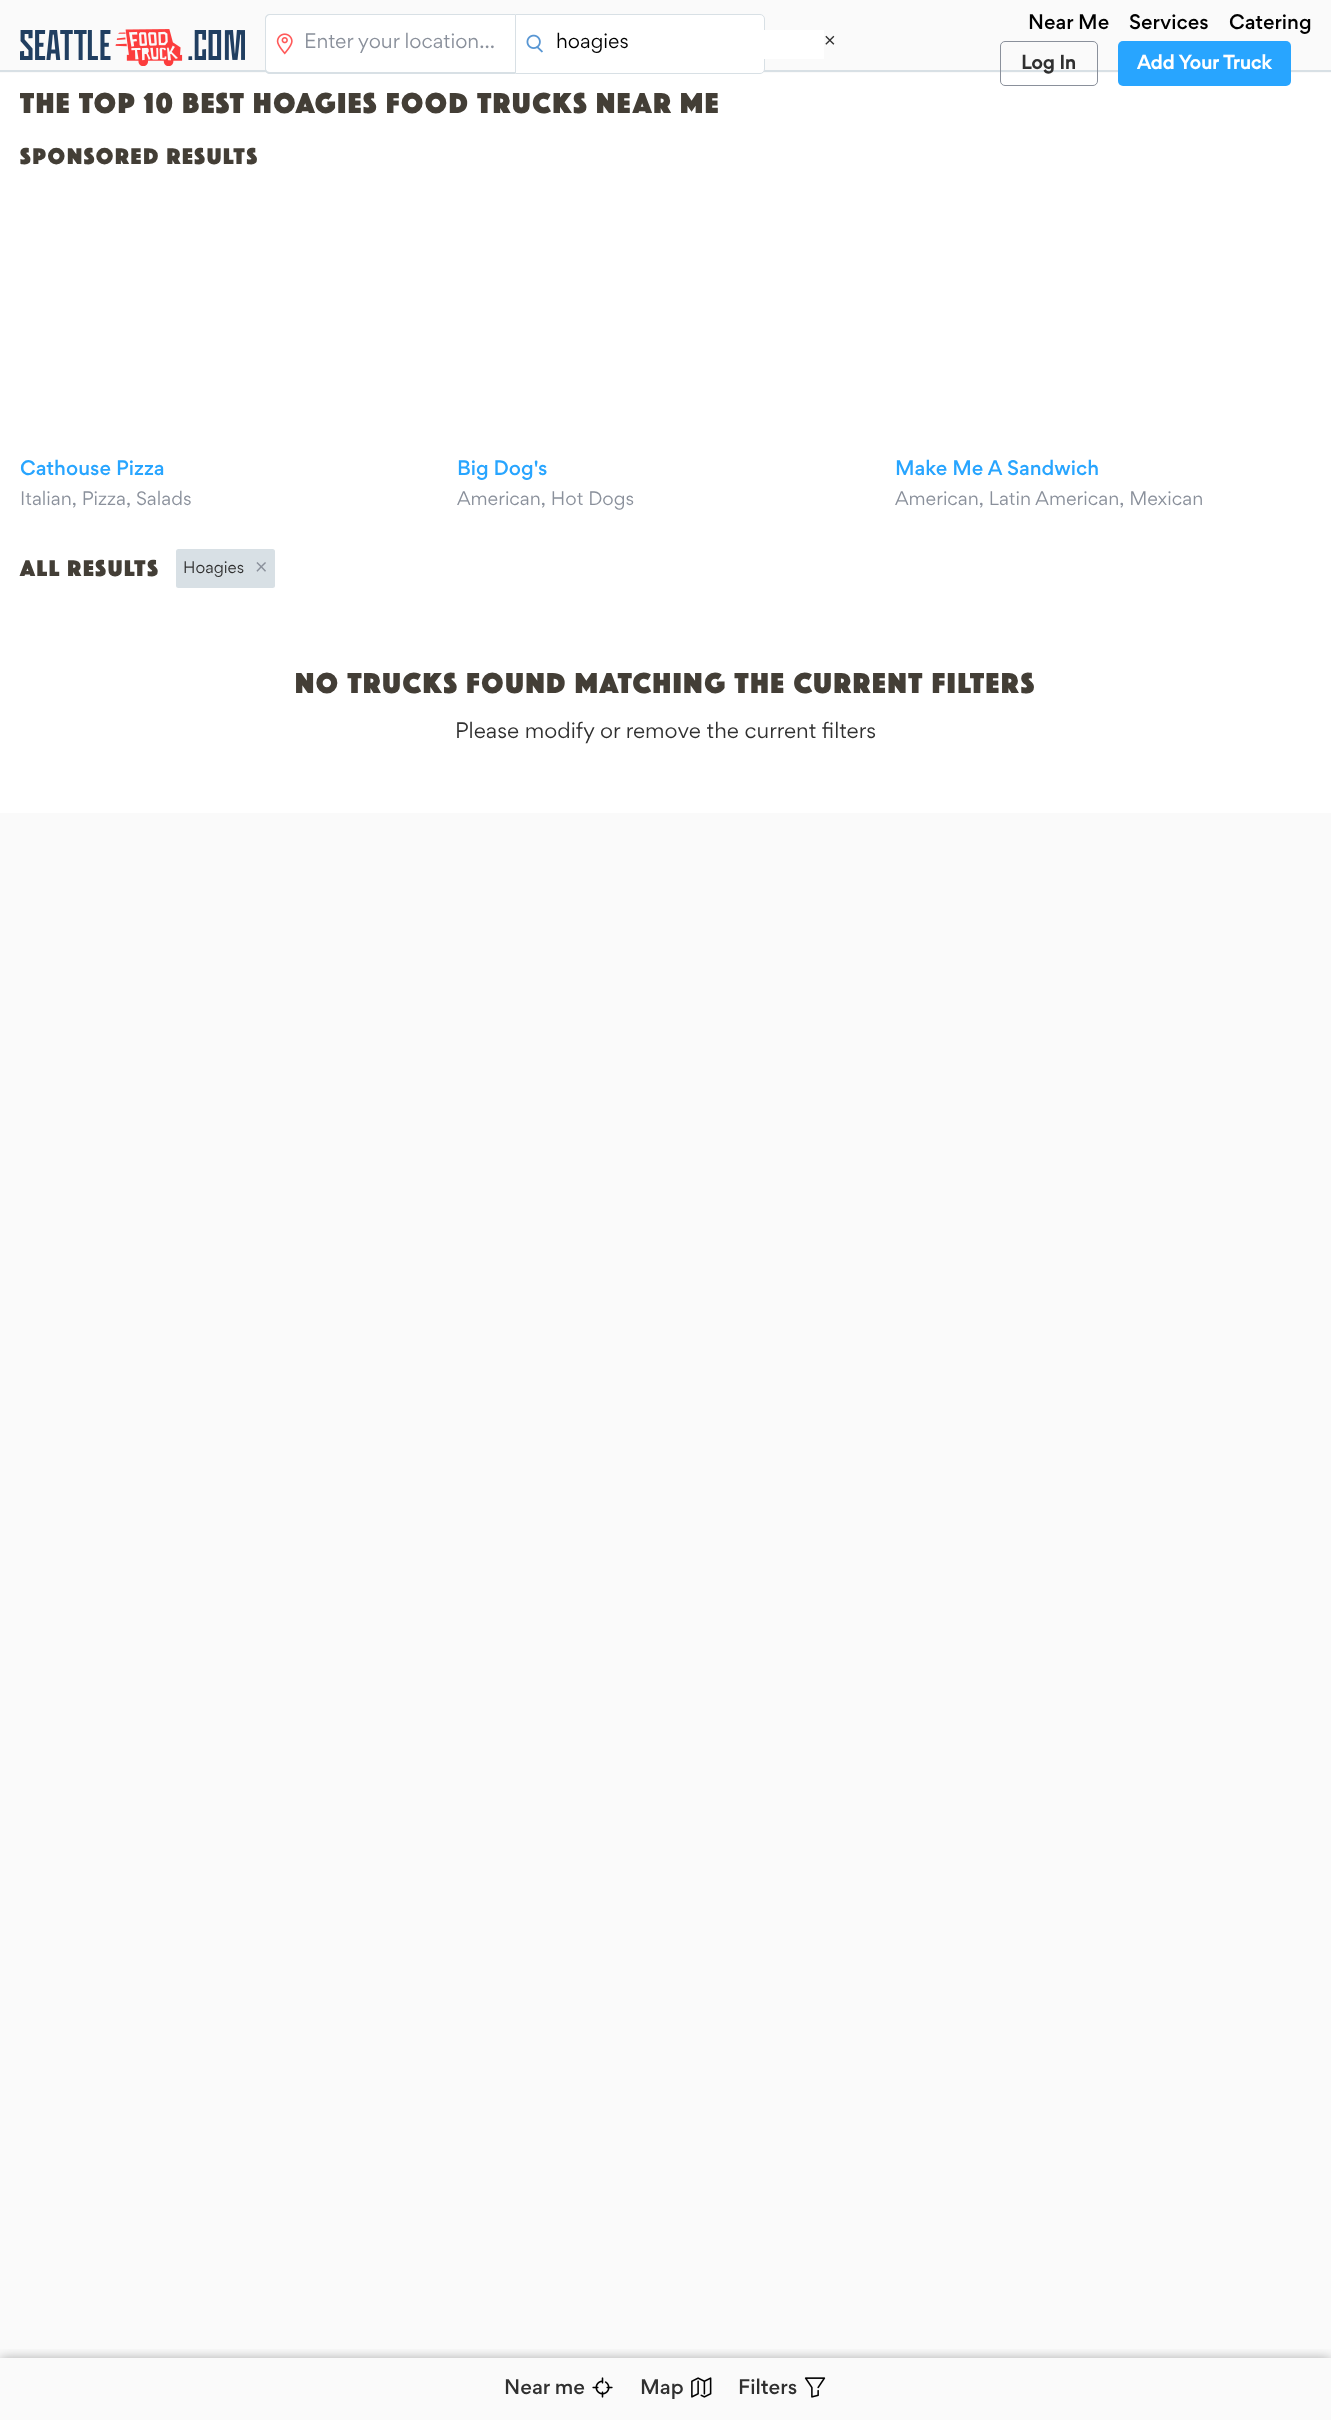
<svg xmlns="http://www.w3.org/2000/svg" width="1331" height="2420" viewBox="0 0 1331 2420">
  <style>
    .t1 { font: 18.75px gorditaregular; fill: #8a909b; }
    .t2 { font: 18.75px gorditaregular; fill: #000; }
    .t3 { font: 18.75px gorditaregular; fill: #303030; }
    .t4 { font: 18.75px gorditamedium; fill: #000; }
    .t5 { font: bold 17.5px gorditamedium; fill: #303030; }
    .t6 { font: bold 17.5px gorditamedium; fill: #fff; }
    .t7 { font: 30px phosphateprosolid; letter-spacing: 1.7px; fill: #433e36; }
    .t8 { font: 23.75px phosphateprosolid; letter-spacing: 1.7px; fill: #433e36; }
    .t9 { font: 18.75px gorditamedium; fill: #28a5ff; }
    .t10 { font: 17.5px gorditaregular; fill: #8a909b; }
    .t11 { font: 15px gorditaregular; fill: #303030; }
    .t12 { font: 20px gorditaregular; fill: #8a909b; }
    .t13 { font: 20px gorditaregular; fill: #303030; }
    .t14 { font: 19px gorditamedium; fill: #303030; }
  </style>
  <defs>
    <clipPath id="clip1"><rect x="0" y="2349" width="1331" height="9"/></clipPath>
  </defs>
  <rect width="100%" height="100%" fill="#fafafa"/>
  <image x="20" y="29" width="225" height="37" href="images/1.png"/>
  <rect x="0" y="70" width="1331" height="2" fill="#d8e0e5"/>
  <path d="M270 15H515V73H270C268 73 266 71 266 69V19C266 17 268 15 270 15Z" fill="#fff"/>
  <rect x="0" y="73" width="1331" height="740" fill="#fff"/>
  <path d="M270 14H515V74H270C267 74 265 72 265 69V19C265 16 267 14 270 14ZM270 15H515V72H270C268 72 266 71 266 69V19C266 17 268 15 270 15Z" fill="#d8e0e5" fill-rule="evenodd"/>
  <image x="276" y="33" width="17" height="22" href="images/2.png"/>
  <text x="304" y="48" class="t1">Enter your location...</text>
  <path d="M515.5 14.5H760C762.5 14.5 764.5 16.5 764.5 19V69C764.5 71.5 762.5 73.5 760 73.5H515.5Z" fill="#fff" stroke="#d8e0e5"/>
  <image x="526" y="34" width="17" height="19" href="images/3.png"/>
  <rect x="764" y="30" width="60" height="29" fill="#fff"/>
  <text x="556" y="48" class="t2">hoagies</text>
  <text x="824" y="47" class="t3">×</text>
  <text x="1028" y="29" class="t4">Near Me</text>
  <text x="1129" y="29" class="t4">Services</text>
  <text x="1229" y="29" class="t4">Catering</text>
  <rect x="1000.5" y="41.5" width="97" height="44" rx="4.5" fill="none" stroke="#8a909b"/>
  <text x="1021" y="69" class="t5">Log In</text>
  <rect x="1118" y="41" width="173" height="45" rx="5" fill="#28a5ff"/>
  <text x="1137" y="69" class="t6">Add Your</text>
  <text x="1223" y="69" class="t6">Truck</text>
  <text x="20" y="113" class="t7">The Top 10 Best Hoagies Food Trucks Near Me</text>
  <text x="20" y="164" class="t8">Sponsored Results</text>
  <text x="20" y="475" class="t9">Cathouse Pizza</text>
  <text x="20" y="505" class="t10">Italian, Pizza, Salads</text>
  <text x="457" y="475" class="t9">Big Dog's</text>
  <text x="457" y="505" class="t10">American, Hot Dogs</text>
  <text x="895" y="475" class="t9">Make Me A Sandwich</text>
  <text x="895" y="505" class="t10">American, Latin American, Mexican</text>
  <text x="20" y="576" class="t8">All Results</text>
  <rect x="176" y="549" width="99" height="39" rx="2.5" fill="#d8e0e5"/>
  <text x="183" y="573" class="t11">Hoagies</text>
  <text x="255" y="574" class="t12">×</text>
  <text x="295" y="693" class="t7">No trucks found matching the current filters</text>
  <text x="455" y="738" class="t13">Please modify or remove the current filters</text>
  <g clip-path="url(#clip1)">
    <rect x="0" y="2358" width="1331" height="62" fill="#0000004d" filter="blur(6px)"/>
  </g>
  <text x="504" y="2394" class="t14">Near me</text>
  <image x="592" y="2377" width="21" height="21" href="images/4.png"/>
  <text x="640" y="2394" class="t14">Map</text>
  <image x="691" y="2377" width="21" height="21" href="images/5.png"/>
  <text x="738" y="2394" class="t14">Filters</text>
  <image x="804" y="2377" width="22" height="21" href="images/6.png"/>
</svg>
